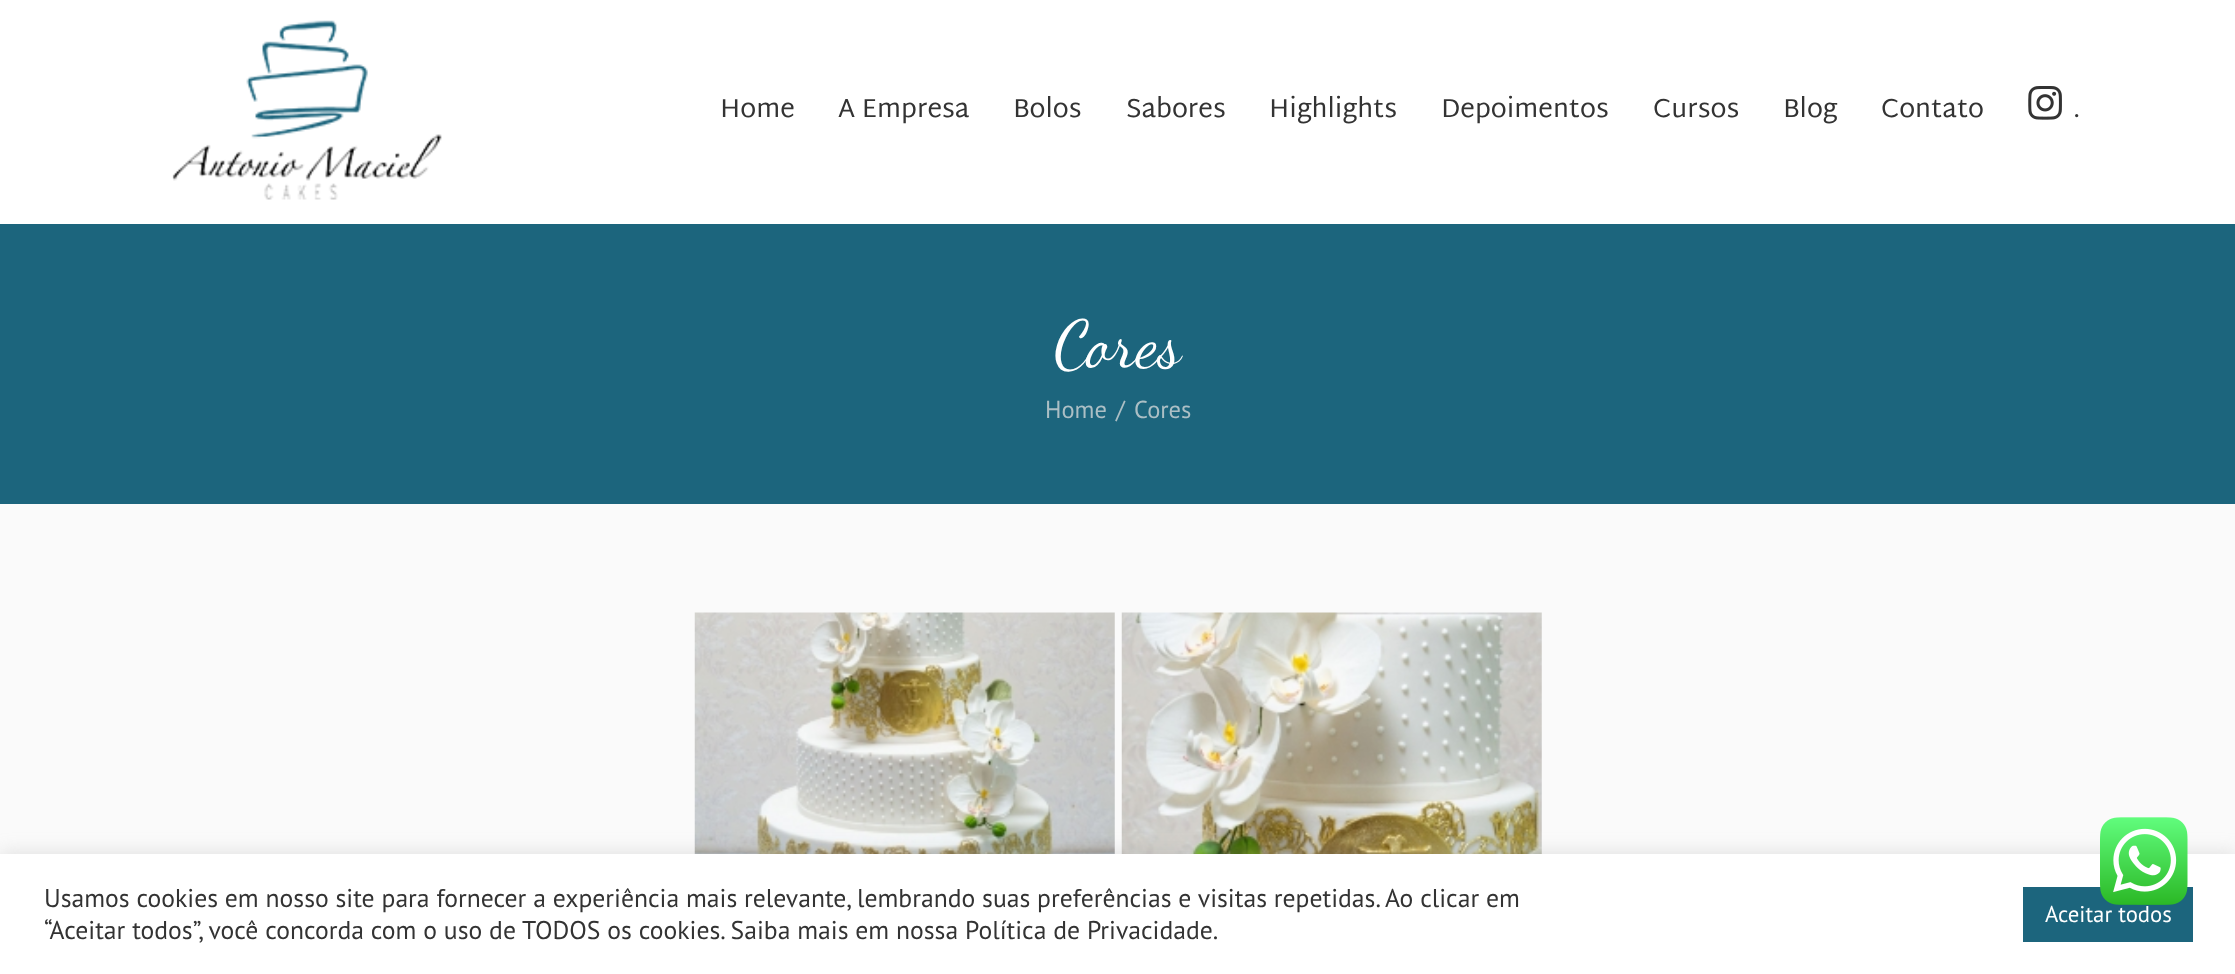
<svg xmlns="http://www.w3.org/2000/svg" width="2235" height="974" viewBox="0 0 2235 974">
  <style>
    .t1 { font: 26.25px Martel Sans; fill: #333; }
    .t2 { font: 66px Dancing Script; fill: #fff; }
    .t3 { font: 24.5px PT Sans; fill: #acbfc5; }
    .t4 { font: 25.67px PT Sans; fill: #333; }
    .t5 { font: 22.75px PT Sans; fill: #fff; }
  </style>
  <rect width="100%" height="100%" fill="#fafafa"/>
  <rect x="0" y="0" width="2235" height="224" fill="#fff"/>
  <image x="172" y="20" width="270" height="180" href="images/1.png"/>
  <text x="720" y="117" class="t1">Home</text>
  <text x="838" y="117" class="t1">A Empresa</text>
  <text x="1013" y="117" class="t1">Bolos</text>
  <text x="1126" y="117" class="t1">Sabores</text>
  <text x="1269" y="117" class="t1">Highlights</text>
  <text x="1441" y="117" class="t1">Depoimentos</text>
  <text x="1653" y="117" class="t1">Cursos</text>
  <text x="1783" y="117" class="t1">Blog</text>
  <text x="1881" y="117" class="t1">Contato</text>
  <image x="2028" y="86" width="34" height="34" href="images/2.png"/>
  <text x="2073" y="117" class="t1">.</text>
  <rect x="0" y="224" width="2235" height="280" fill="#1c657d"/>
  <text x="1054" y="366" class="t2">Cores</text>
  <text x="1045" y="418" class="t3">Home</text>
  <text x="1116" y="418" class="t3">/</text>
  <text x="1134" y="418" class="t3">Cores</text>
  <image x="694" y="612" width="421" height="242" href="images/3.png"/>
  <image x="1121" y="612" width="421" height="242" href="images/4.png"/>
  <rect x="0" y="852" width="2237" height="121" fill="#acabab4d" filter="blur(9px)"/>
  <rect x="0" y="854" width="2235" height="120" fill="#fff"/>
  <rect x="2023" y="887" width="170" height="55" fill="#1c657d"/>
  <image x="2100" y="817" width="88" height="88" href="images/5.png"/>
  <text x="44" y="907" class="t4">Usamos cookies em nosso site para fornecer a experiência mais relevante, lembrando suas preferências e visitas repetidas. Ao clicar em</text>
  <text x="44" y="939" class="t4">“Aceitar todos”, você concorda com o uso de TODOS os cookies. Saiba mais em nossa Política de Privacidade.</text>
  <text x="2045" y="922" class="t5">Aceitar todos</text>
</svg>
